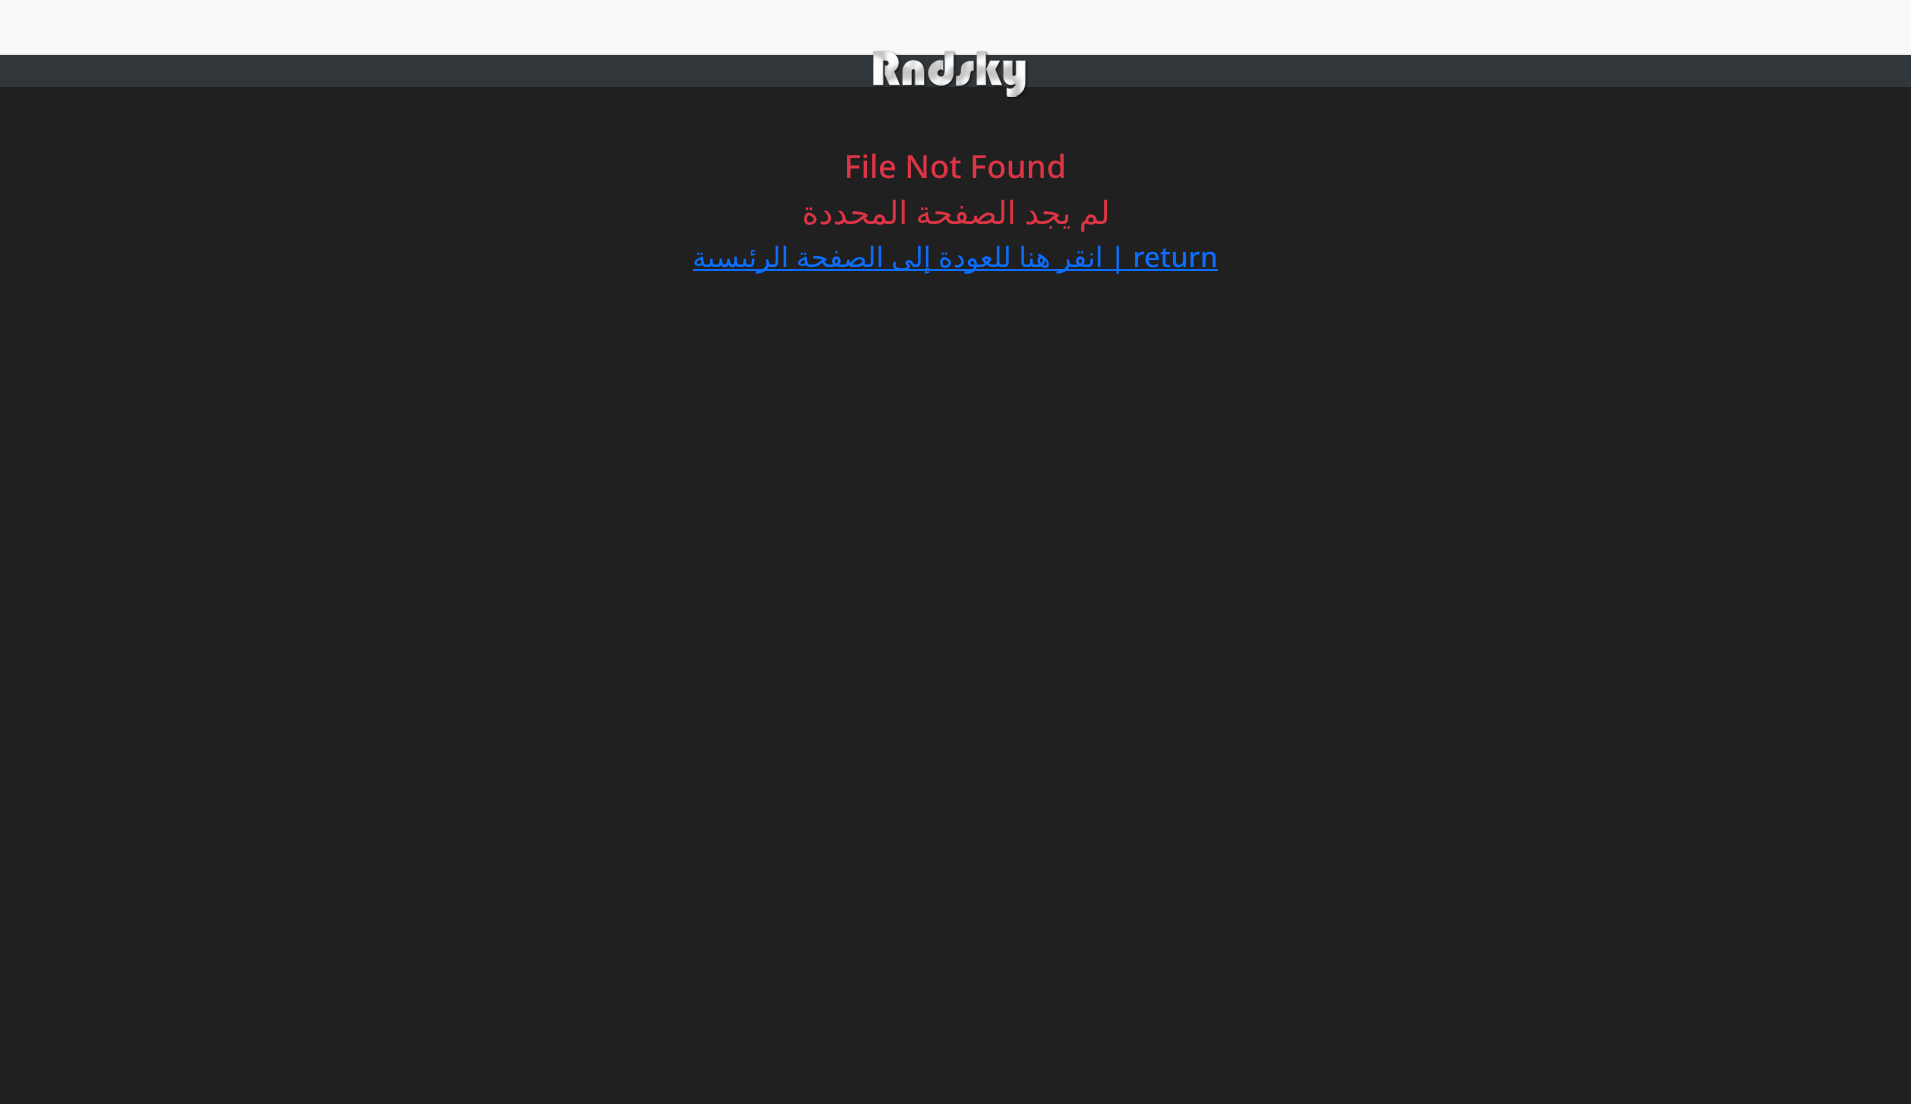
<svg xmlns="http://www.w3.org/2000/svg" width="1911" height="1104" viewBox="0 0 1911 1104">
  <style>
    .t1 { font: 500 32px Noto Sans; fill: #dc3545; }
    .t2 { font: 32px DejaVu Sans; direction: rtl; fill: #dc3545; }
    .t3 { font: 500 28px Noto Sans; fill: #0d6efd; }
    .t4 { font: 28px DejaVu Sans; direction: rtl; fill: #0d6efd; }
  </style>
  <rect width="100%" height="100%" fill="#202020"/>
  <image x="0" y="0" width="1911" height="87" href="images/1.png"/>
  <image x="872" y="50" width="156" height="49" href="images/2.png"/>
  <text x="844" y="178" class="t1">File Not Found</text>
  <text x="1110" y="224" word-spacing="-2" class="t2">لم يجد الصفحة المحددة</text>
  <rect x="693" y="269" width="525" height="2" fill="#0d6efd"/>
  <text x="1110" y="267" class="t3">| return</text>
  <text x="1103" y="267" word-spacing="-1.5" class="t4">انقر هنا للعودة إلى الصفحة الرئيسية</text>
</svg>
